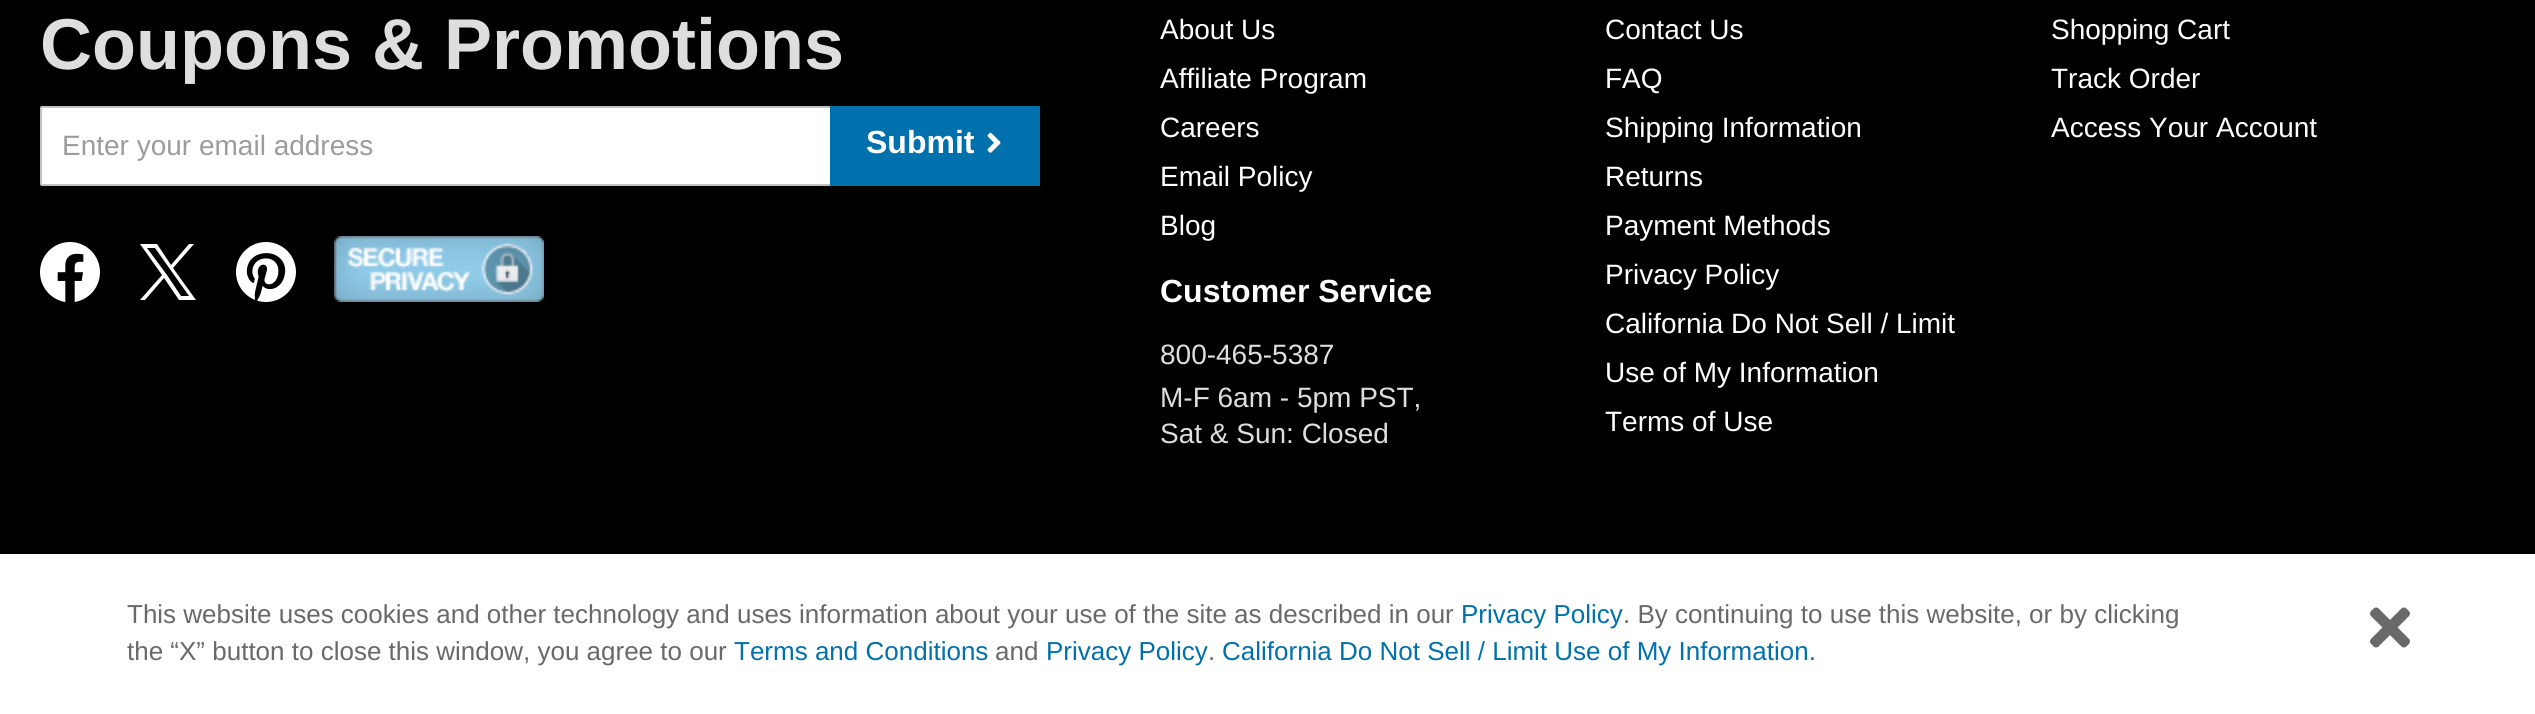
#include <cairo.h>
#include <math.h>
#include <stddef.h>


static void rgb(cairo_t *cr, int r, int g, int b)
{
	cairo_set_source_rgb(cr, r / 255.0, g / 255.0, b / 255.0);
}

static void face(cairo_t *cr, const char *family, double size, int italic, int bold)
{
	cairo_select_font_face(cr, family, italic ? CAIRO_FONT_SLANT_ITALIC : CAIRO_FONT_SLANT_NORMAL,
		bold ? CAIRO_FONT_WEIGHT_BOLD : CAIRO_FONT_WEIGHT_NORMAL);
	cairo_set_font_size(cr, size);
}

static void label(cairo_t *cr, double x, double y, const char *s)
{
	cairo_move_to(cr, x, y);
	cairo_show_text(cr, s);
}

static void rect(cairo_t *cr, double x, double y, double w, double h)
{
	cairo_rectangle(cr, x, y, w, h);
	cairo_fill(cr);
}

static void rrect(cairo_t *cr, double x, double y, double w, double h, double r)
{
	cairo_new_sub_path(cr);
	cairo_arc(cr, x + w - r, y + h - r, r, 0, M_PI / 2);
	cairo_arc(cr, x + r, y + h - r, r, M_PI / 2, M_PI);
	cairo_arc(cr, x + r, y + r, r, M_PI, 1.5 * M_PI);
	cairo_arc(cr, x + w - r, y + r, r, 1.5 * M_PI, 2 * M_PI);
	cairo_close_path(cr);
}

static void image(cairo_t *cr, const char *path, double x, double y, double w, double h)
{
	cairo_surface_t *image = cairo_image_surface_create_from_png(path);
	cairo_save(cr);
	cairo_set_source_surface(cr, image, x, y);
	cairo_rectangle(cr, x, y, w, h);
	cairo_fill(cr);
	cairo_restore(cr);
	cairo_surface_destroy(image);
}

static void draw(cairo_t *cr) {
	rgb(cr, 0, 0, 0);
	cairo_paint(cr);
	face(cr, "Liberation Sans", 72, 0, 1);
	rgb(cr, 222, 222, 222);
	label(cr, 40, 69, "Coupons & Promotions");
	rgb(cr, 255, 255, 255);
	rect(cr, 42, 108, 788, 76);
	rrect(cr, 41, 107, 988, 78, 1);
	rgb(cr, 194, 194, 194);
	cairo_stroke(cr);
	face(cr, "Liberation Sans", 28, 0, 0);
	rgb(cr, 156, 156, 156);
	label(cr, 62, 155, "Enter your email address");
	rgb(cr, 1, 113, 173);
	rect(cr, 830, 106, 210, 80);
	face(cr, "Liberation Sans", 32, 0, 1);
	rgb(cr, 255, 255, 255);
	label(cr, 866, 153, "Submit");
	image(cr, "image0.png", 987, 132, 14, 21);
	image(cr, "image1.png", 40, 242, 60, 60);
	cairo_new_path(cr);
	cairo_move_to(cr, 173, 268);
	cairo_line_to(cr, 194, 244);
	cairo_line_to(cr, 189, 244);
	cairo_line_to(cr, 171, 265);
	cairo_line_to(cr, 157, 244);
	cairo_line_to(cr, 140, 244);
	cairo_line_to(cr, 162, 275);
	cairo_line_to(cr, 140, 300);
	cairo_line_to(cr, 145, 300);
	cairo_line_to(cr, 164, 278);
	cairo_line_to(cr, 179, 300);
	cairo_line_to(cr, 196, 300);
	cairo_close_path(cr);
	cairo_move_to(cr, 167, 275);
	cairo_line_to(cr, 147, 248);
	cairo_line_to(cr, 155, 248);
	cairo_line_to(cr, 189, 296);
	cairo_line_to(cr, 181, 296);
	cairo_close_path(cr);
	cairo_fill(cr);
	image(cr, "image2.png", 236, 242, 60, 60);
	image(cr, "image3.png", 334, 236, 210, 66);
	face(cr, "Liberation Sans", 28, 0, 0);
	label(cr, 1160, 39, "About Us");
	label(cr, 1160, 88, "Affiliate Program");
	label(cr, 1160, 137, "Careers");
	label(cr, 1160, 186, "Email Policy");
	label(cr, 1160, 235, "Blog");
	face(cr, "Liberation Sans", 32, 0, 1);
	label(cr, 1160, 302, "Customer Service");
	face(cr, "Liberation Sans", 28, 0, 0);
	rgb(cr, 222, 222, 222);
	label(cr, 1160, 364, "800-465-5387");
	label(cr, 1160, 407, "M-F 6am - 5pm PST,");
	label(cr, 1160, 443, "Sat & Sun: Closed");
	rgb(cr, 255, 255, 255);
	label(cr, 1605, 39, "Contact Us");
	label(cr, 1605, 88, "FAQ");
	label(cr, 1605, 137, "Shipping Information");
	label(cr, 1605, 186, "Returns");
	label(cr, 1605, 235, "Payment Methods");
	label(cr, 1605, 284, "Privacy Policy");
	label(cr, 1605, 333, "California Do Not Sell / Limit");
	label(cr, 1605, 382, "Use of My Information");
	label(cr, 1605, 431, "Terms of Use");
	label(cr, 2051, 39, "Shopping Cart");
	label(cr, 2051, 88, "Track Order");
	label(cr, 2051, 137, "Access Your Account");
	rect(cr, 0, 554, 2535, 160);
	face(cr, "Liberation Sans", 26, 0, 0);
	rgb(cr, 105, 105, 105);
	label(cr, 127, 623, "This website uses cookies and other technology and uses information about your use of the site as described in our");
	rgb(cr, 1, 113, 173);
	label(cr, 1461, 623, "Privacy Policy");
	rgb(cr, 105, 105, 105);
	label(cr, 1623, 623, ". By continuing to use this website, or by clicking");
	label(cr, 127, 660, "the “X” button to close this window, you agree to our");
	rgb(cr, 1, 113, 173);
	label(cr, 734, 660, "Terms and Conditions");
	rgb(cr, 105, 105, 105);
	label(cr, 995, 660, "and");
	rgb(cr, 1, 113, 173);
	label(cr, 1046, 660, "Privacy Policy");
	rgb(cr, 105, 105, 105);
	label(cr, 1208, 660, ".");
	rgb(cr, 1, 113, 173);
	label(cr, 1222, 660, "California Do Not Sell / Limit Use of My Information.");
	image(cr, "image4.png", 2370, 607, 40, 41);
}

int main(void) {
	cairo_surface_t *surface = cairo_image_surface_create(CAIRO_FORMAT_RGB24, 2535, 714);
	cairo_t *cr = cairo_create(surface);
	cairo_font_options_t *options = cairo_font_options_create();
	cairo_font_options_set_hint_metrics(options, CAIRO_HINT_METRICS_OFF);
	cairo_font_options_set_hint_style(options, CAIRO_HINT_STYLE_NONE);
	cairo_set_font_options(cr, options);
	cairo_set_miter_limit(cr, 4);
	draw(cr);
	cairo_surface_write_to_png(surface, "render.png");
	cairo_font_options_destroy(options);
	cairo_destroy(cr);
	cairo_surface_destroy(surface);
	return 0;
}
